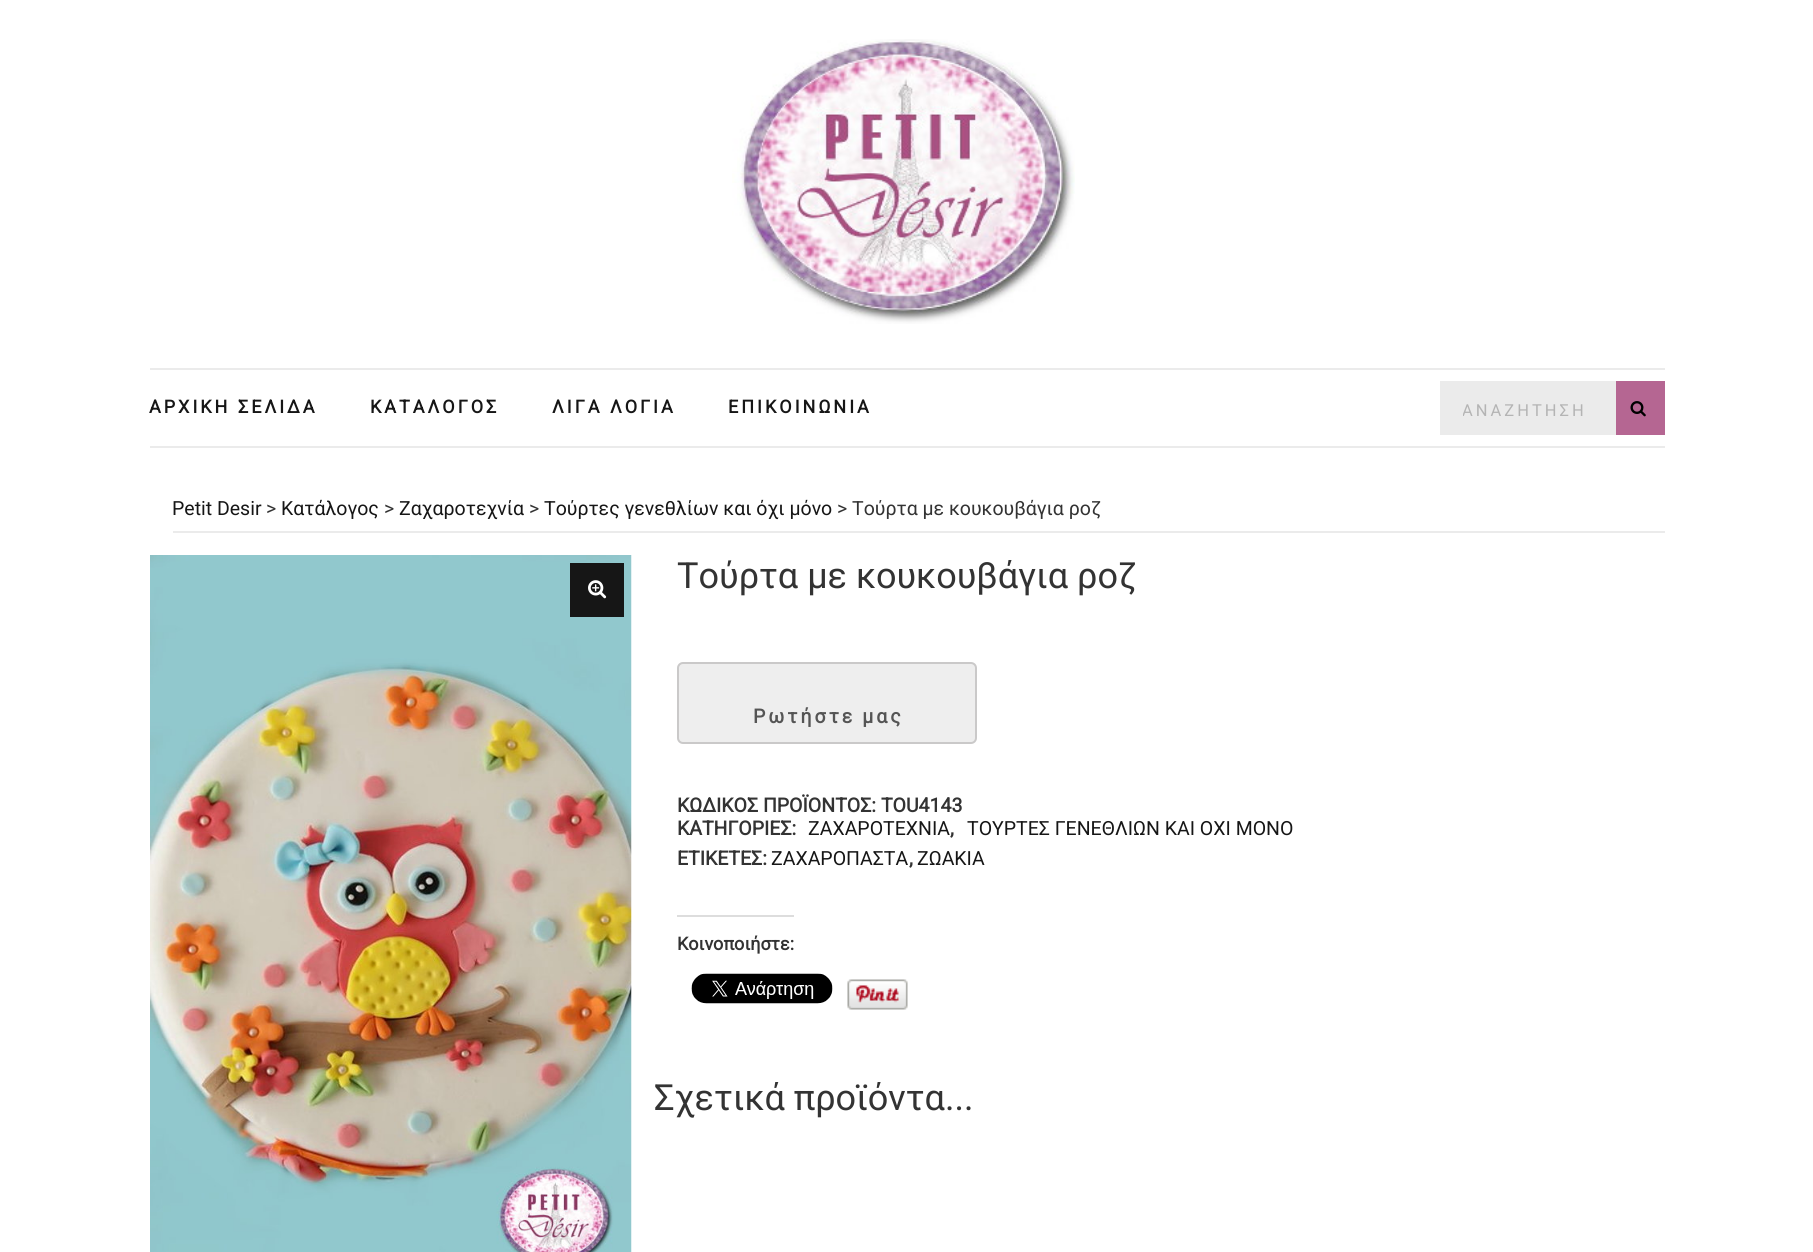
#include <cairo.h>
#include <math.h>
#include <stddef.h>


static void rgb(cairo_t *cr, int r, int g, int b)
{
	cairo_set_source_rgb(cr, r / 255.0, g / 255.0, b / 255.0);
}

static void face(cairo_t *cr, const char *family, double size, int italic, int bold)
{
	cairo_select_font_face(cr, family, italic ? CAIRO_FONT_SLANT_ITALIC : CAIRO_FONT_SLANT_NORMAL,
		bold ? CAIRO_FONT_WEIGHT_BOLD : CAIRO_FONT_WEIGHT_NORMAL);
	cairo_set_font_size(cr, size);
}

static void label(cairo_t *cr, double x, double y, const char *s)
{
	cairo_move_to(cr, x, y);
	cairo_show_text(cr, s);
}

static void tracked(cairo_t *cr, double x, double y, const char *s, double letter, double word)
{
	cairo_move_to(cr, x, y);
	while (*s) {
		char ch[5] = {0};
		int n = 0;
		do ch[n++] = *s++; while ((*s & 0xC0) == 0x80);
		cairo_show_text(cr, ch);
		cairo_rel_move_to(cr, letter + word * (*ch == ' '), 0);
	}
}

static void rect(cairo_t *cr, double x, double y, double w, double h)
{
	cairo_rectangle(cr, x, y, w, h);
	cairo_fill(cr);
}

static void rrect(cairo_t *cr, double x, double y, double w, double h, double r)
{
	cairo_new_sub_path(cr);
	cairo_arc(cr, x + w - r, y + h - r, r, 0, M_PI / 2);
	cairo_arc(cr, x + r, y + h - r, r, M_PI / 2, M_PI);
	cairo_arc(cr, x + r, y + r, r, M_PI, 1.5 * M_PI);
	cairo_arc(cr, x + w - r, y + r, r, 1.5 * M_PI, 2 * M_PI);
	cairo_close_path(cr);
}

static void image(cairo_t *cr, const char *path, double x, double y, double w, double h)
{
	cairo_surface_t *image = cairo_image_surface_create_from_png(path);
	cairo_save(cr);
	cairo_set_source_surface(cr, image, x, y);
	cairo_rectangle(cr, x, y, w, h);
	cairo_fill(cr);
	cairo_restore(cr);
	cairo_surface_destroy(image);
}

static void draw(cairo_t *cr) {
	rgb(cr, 255, 255, 255);
	cairo_paint(cr);
	image(cr, "image0.png", 732, 39, 343, 285);
	rgb(cr, 235, 235, 235);
	rect(cr, 150, 368, 1515, 2);
	rect(cr, 150, 446, 1515, 2);
	face(cr, "Roboto", 18, 0, 1);
	rgb(cr, 22, 22, 22);
	tracked(cr, 149, 413, "ΑΡΧΙΚΗ ΣΕΛΙΔΑ", 3, 0);
	tracked(cr, 370, 413, "ΚΑΤΑΛΟΓΟΣ", 3, 0);
	tracked(cr, 552, 413, "ΛΙΓΑ ΛΟΓΙΑ", 3, 0);
	tracked(cr, 728, 413, "ΕΠΙΚΟΙΝΩΝΙΑ", 3, 0);
	rgb(cr, 235, 235, 235);
	rect(cr, 1440, 381, 176, 54);
	cairo_save(cr);
	cairo_rectangle(cr, 1463, 402, 184, 20);
	cairo_clip(cr);
	face(cr, "Roboto", 16.5, 0, 0);
	rgb(cr, 180, 180, 180);
	tracked(cr, 1462, 416, "ΑΝΑΖΗΤΗΣΗ", 3, 0);
	cairo_restore(cr);
	rgb(cr, 181, 102, 146);
	rect(cr, 1616, 381, 49, 54);
	image(cr, "image1.png", 1630, 401, 16, 16);
	rgb(cr, 235, 235, 235);
	rect(cr, 173, 531, 1492, 2);
	face(cr, "Roboto", 19.5, 0, 0);
	rgb(cr, 22, 22, 22);
	label(cr, 172, 515, "Petit Desir");
	rgb(cr, 51, 51, 51);
	label(cr, 266, 515, ">");
	rgb(cr, 22, 22, 22);
	label(cr, 281, 515, "Κατάλογος");
	rgb(cr, 51, 51, 51);
	label(cr, 384, 515, ">");
	rgb(cr, 22, 22, 22);
	label(cr, 399, 515, "Ζαχαροτεχνία");
	rgb(cr, 51, 51, 51);
	label(cr, 529, 515, ">");
	rgb(cr, 22, 22, 22);
	label(cr, 544, 515, "Τούρτες γενεθλίων και όχι μόνο");
	rgb(cr, 51, 51, 51);
	label(cr, 837, 515, "> Τούρτα με κουκουβάγια ροζ");
	image(cr, "image2.png", 150, 555, 482, 697);
	rgb(cr, 22, 22, 22);
	rect(cr, 570, 563, 54, 54);
	image(cr, "image3.png", 588, 580, 19, 19);
	face(cr, "Roboto", 36, 0, 0);
	rgb(cr, 51, 51, 51);
	label(cr, 677, 588, "Τούρτα με κουκουβάγια ροζ");
	rgb(cr, 238, 238, 238);
	rrect(cr, 678, 663, 298, 80, 5);
	cairo_fill_preserve(cr);
	rgb(cr, 202, 201, 201);
	cairo_stroke(cr);
	face(cr, "Roboto", 19.5, 0, 1);
	rgb(cr, 85, 85, 85);
	tracked(cr, 753, 723, "Ρωτήστε μας", 3, -1);
	rgb(cr, 51, 51, 51);
	label(cr, 677, 812, "ΚΩΔΙΚΟΣ ΠΡΟΪΟΝΤΟΣ: TOU4143");
	label(cr, 677, 835, "ΚΑΤΗΓΟΡΙΕΣ:");
	face(cr, "Roboto", 19.5, 0, 0);
	rgb(cr, 22, 22, 22);
	label(cr, 808, 835, "ΖΑΧΑΡΟΤΕΧΝΙΑ");
	face(cr, "Roboto", 19.5, 0, 1);
	rgb(cr, 51, 51, 51);
	label(cr, 950, 835, ",");
	face(cr, "Roboto", 19.5, 0, 0);
	rgb(cr, 22, 22, 22);
	label(cr, 967, 835, "ΤΟΥΡΤΕΣ ΓΕΝΕΘΛΙΩΝ ΚΑΙ ΟΧΙ ΜΟΝΟ");
	face(cr, "Roboto", 19.5, 0, 1);
	rgb(cr, 51, 51, 51);
	label(cr, 677, 865, "ΕΤΙΚΕΤΕΣ:");
	face(cr, "Roboto", 19.5, 0, 0);
	rgb(cr, 22, 22, 22);
	label(cr, 771, 865, "ΖΑΧΑΡΟΠΑΣΤΑ");
	face(cr, "Roboto", 19.5, 0, 1);
	rgb(cr, 51, 51, 51);
	label(cr, 909, 865, ",");
	face(cr, "Roboto", 19.5, 0, 0);
	rgb(cr, 22, 22, 22);
	label(cr, 917, 865, "ΖΩΑΚΙΑ");
	rgb(cr, 221, 221, 221);
	rect(cr, 677, 915, 117, 2);
	face(cr, "Roboto", 18, 0, 1);
	rgb(cr, 51, 51, 51);
	label(cr, 677, 950, "Κοινοποιήστε:");
	image(cr, "image4.png", 691, 973, 142, 31);
	image(cr, "image5.png", 847, 979, 61, 31);
	face(cr, "Roboto", 36, 0, 0);
	label(cr, 654, 1110, "Σχετικά προϊόντα...");
}

int main(void) {
	cairo_surface_t *surface = cairo_image_surface_create(CAIRO_FORMAT_RGB24, 1813, 1252);
	cairo_t *cr = cairo_create(surface);
	cairo_font_options_t *options = cairo_font_options_create();
	cairo_font_options_set_hint_metrics(options, CAIRO_HINT_METRICS_OFF);
	cairo_font_options_set_hint_style(options, CAIRO_HINT_STYLE_NONE);
	cairo_set_font_options(cr, options);
	cairo_set_miter_limit(cr, 4);
	draw(cr);
	cairo_surface_write_to_png(surface, "render.png");
	cairo_font_options_destroy(options);
	cairo_destroy(cr);
	cairo_surface_destroy(surface);
	return 0;
}
